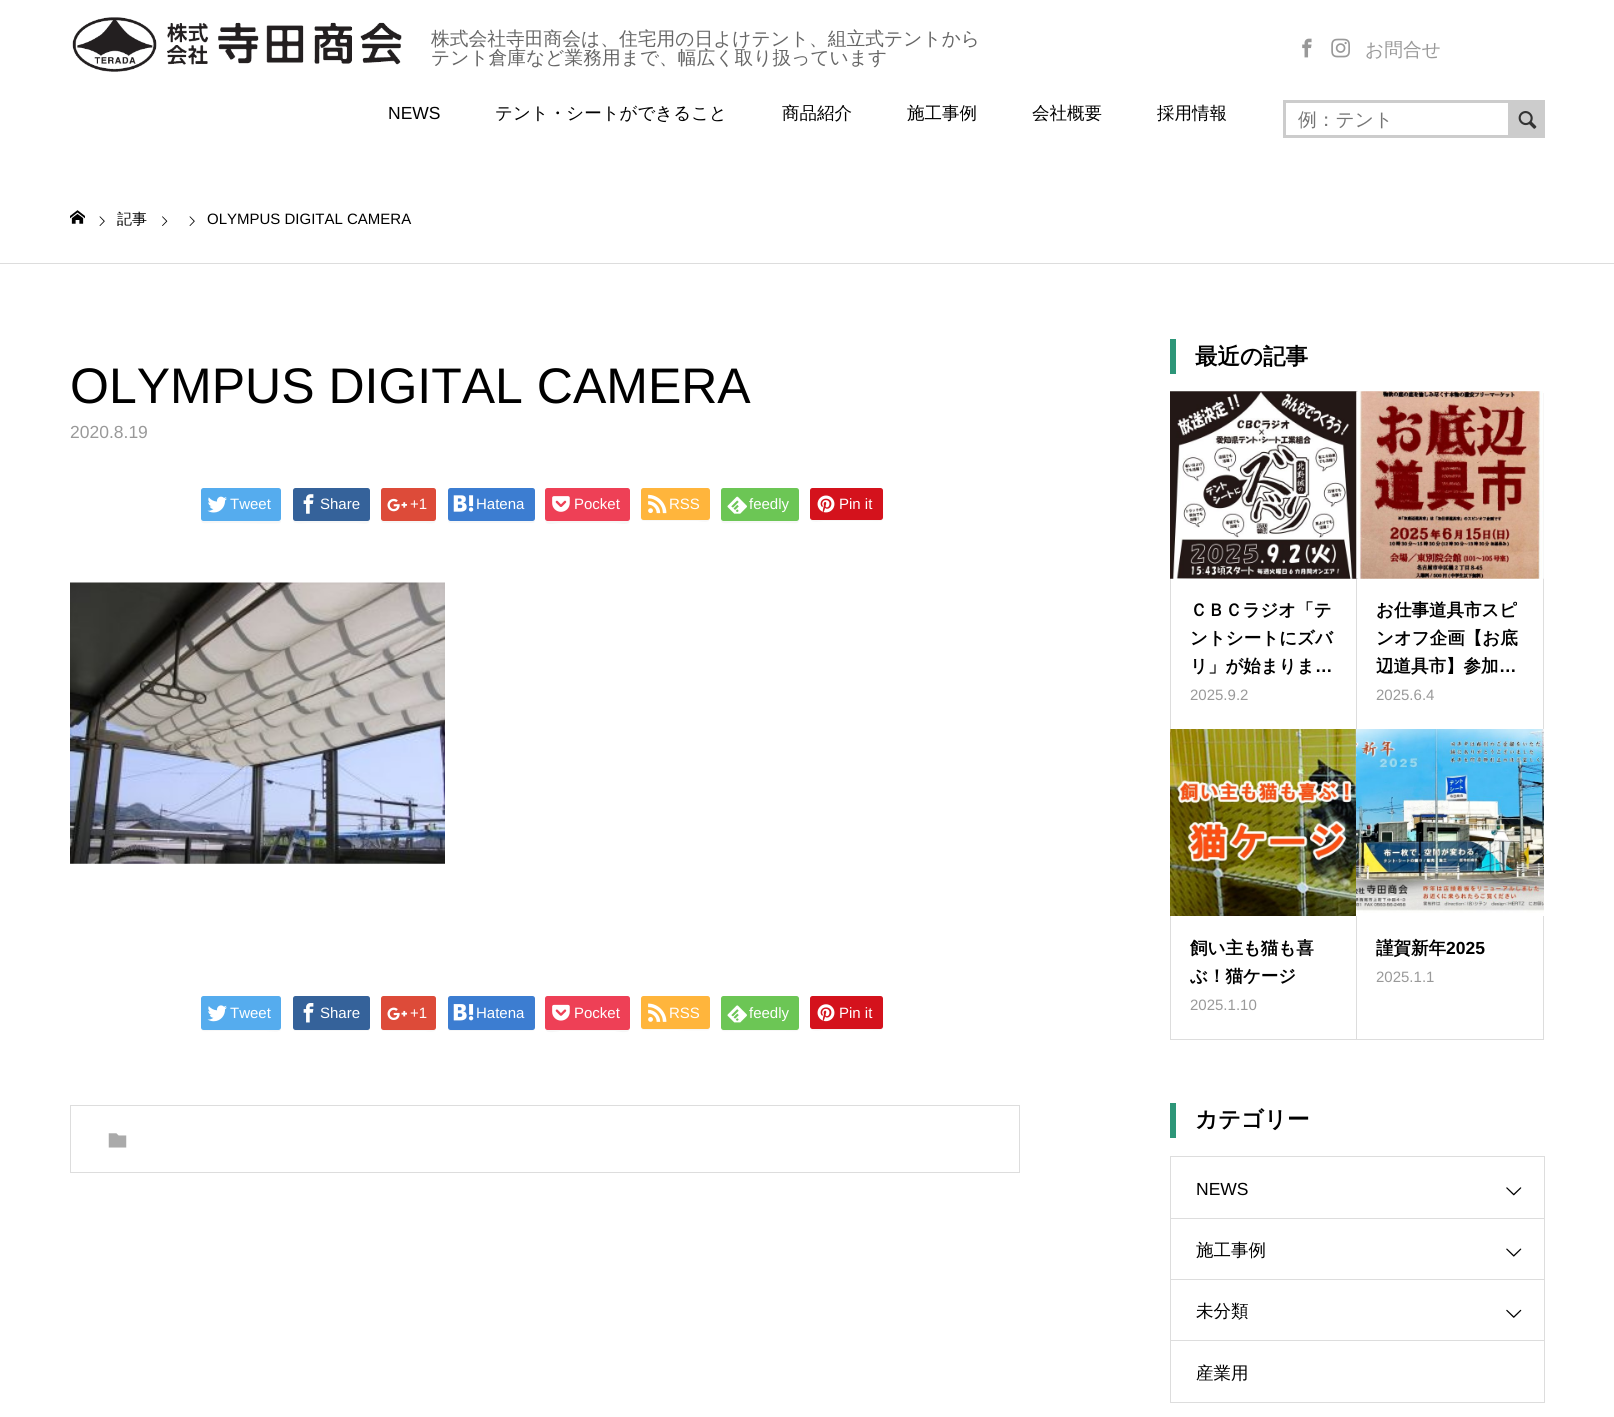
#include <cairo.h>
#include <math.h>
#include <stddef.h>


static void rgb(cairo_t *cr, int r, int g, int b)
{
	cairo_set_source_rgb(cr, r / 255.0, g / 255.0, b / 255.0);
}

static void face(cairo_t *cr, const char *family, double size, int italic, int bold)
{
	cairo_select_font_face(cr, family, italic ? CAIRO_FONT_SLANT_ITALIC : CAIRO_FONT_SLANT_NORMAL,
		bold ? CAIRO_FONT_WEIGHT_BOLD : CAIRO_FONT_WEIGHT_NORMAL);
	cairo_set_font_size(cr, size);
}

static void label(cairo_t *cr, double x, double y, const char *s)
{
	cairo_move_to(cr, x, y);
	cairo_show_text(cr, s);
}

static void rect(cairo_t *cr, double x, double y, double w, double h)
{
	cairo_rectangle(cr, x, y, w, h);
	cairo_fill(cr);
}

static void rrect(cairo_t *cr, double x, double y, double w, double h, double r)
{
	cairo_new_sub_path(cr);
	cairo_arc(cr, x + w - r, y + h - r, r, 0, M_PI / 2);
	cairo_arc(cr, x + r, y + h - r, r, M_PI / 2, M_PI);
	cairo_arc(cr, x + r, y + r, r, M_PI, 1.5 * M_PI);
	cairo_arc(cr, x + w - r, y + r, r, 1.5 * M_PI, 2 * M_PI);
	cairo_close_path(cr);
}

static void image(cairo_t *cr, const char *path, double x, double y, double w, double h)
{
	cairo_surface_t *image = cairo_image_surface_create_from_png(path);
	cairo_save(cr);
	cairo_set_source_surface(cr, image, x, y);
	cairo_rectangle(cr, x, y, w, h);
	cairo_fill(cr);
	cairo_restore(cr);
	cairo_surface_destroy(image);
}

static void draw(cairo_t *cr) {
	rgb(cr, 255, 255, 255);
	cairo_paint(cr);
	image(cr, "image0.png", 72, 17, 330, 55);
	face(cr, "WenQuanYi Zen Hei Medium", 18.75, 0, 0);
	rgb(cr, 102, 102, 102);
	label(cr, 431, 45, "株式会社寺田商会は、住宅用の日よけテント、組立式テントから");
	label(cr, 431, 64, "テント倉庫など業務用まで、幅広く取り扱っています");
	image(cr, "image1.png", 1302, 38, 10, 20);
	image(cr, "image2.png", 1331, 38, 19, 20);
	rgb(cr, 153, 153, 153);
	label(cr, 1365, 56, "お問合せ");
	cairo_rectangle(cr, 1284.5, 101.5, 247, 35);
	rgb(cr, 204, 204, 204);
	cairo_set_line_width(cr, 3);
	cairo_stroke(cr);
	rgb(cr, 117, 117, 117);
	label(cr, 1298, 126, "例：テント");
	rgb(cr, 204, 204, 204);
	rect(cr, 1508, 100, 37, 38);
	image(cr, "image3.png", 1518, 111, 19, 18);
	face(cr, "Liberation Sans", 17.5, 0, 0);
	rgb(cr, 0, 0, 0);
	label(cr, 388, 119, "NEWS");
	face(cr, "WenQuanYi Zen Hei Medium", 17.5, 0, 0);
	label(cr, 495, 119, "テント・シートができること");
	label(cr, 782, 119, "商品紹介");
	label(cr, 907, 119, "施工事例");
	label(cr, 1032, 119, "会社概要");
	label(cr, 1157, 119, "採用情報");
	rgb(cr, 221, 221, 221);
	rect(cr, 0, 263, 1614, 1);
	image(cr, "image4.png", 70, 210, 15, 14);
	image(cr, "image5.png", 99, 216, 6, 10);
	face(cr, "WenQuanYi Zen Hei Medium", 15, 0, 0);
	rgb(cr, 0, 0, 0);
	label(cr, 117, 224, "記事");
	image(cr, "image6.png", 162, 216, 6, 10);
	image(cr, "image5.png", 189, 216, 6, 10);
	face(cr, "Liberation Sans", 15, 0, 0);
	label(cr, 207, 224, "OLYMPUS DIGITAL CAMERA");
	face(cr, "Liberation Sans", 50, 0, 0);
	label(cr, 70, 403, "OLYMPUS DIGITAL CAMERA");
	face(cr, "Liberation Sans", 17.5, 0, 0);
	rgb(cr, 153, 153, 153);
	label(cr, 70, 438, "2020.8.19");
	rgb(cr, 247, 247, 247);
	cairo_new_path(cr);
	cairo_move_to(cr, 201, 490);
	cairo_line_to(cr, 201, 511);
	cairo_curve_to(cr, 201, 526, 199, 523, 216, 523);
	cairo_line_to(cr, 241, 523);
	cairo_curve_to(cr, 245, 523, 278, 524, 280, 523);
	cairo_curve_to(cr, 281, 522, 281, 521, 281, 520);
	cairo_curve_to(cr, 281, 521, 280, 521, 279, 521);
	cairo_line_to(cr, 204, 521);
	cairo_curve_to(cr, 202, 521, 201, 520, 201, 519);
	cairo_close_path(cr);
	cairo_fill(cr);
	rgb(cr, 85, 172, 238);
	rrect(cr, 201, 488, 80, 33, 2.5);
	cairo_fill(cr);
	image(cr, "image7.png", 207, 496, 20, 17);
	face(cr, "Liberation Sans", 15, 0, 0);
	rgb(cr, 255, 255, 255);
	label(cr, 230, 509, "Tweet");
	rgb(cr, 247, 247, 247);
	cairo_new_path(cr);
	cairo_move_to(cr, 293, 520);
	cairo_curve_to(cr, 293, 525, 302, 523, 308, 523);
	cairo_line_to(cr, 356, 523);
	cairo_curve_to(cr, 362, 523, 370, 526, 370, 519);
	cairo_line_to(cr, 370, 520);
	cairo_line_to(cr, 368, 521);
	cairo_line_to(cr, 294, 521);
	cairo_close_path(cr);
	cairo_fill(cr);
	rgb(cr, 53, 98, 154);
	rrect(cr, 293, 488, 77, 33, 2.5);
	cairo_fill(cr);
	image(cr, "image8.png", 303, 494, 11, 20);
	rgb(cr, 255, 255, 255);
	label(cr, 320, 509, "Share");
	rgb(cr, 247, 247, 247);
	cairo_new_path(cr);
	cairo_move_to(cr, 381, 490);
	cairo_line_to(cr, 381, 511);
	cairo_curve_to(cr, 381, 524, 379, 523, 392, 523);
	cairo_line_to(cr, 425, 523);
	cairo_curve_to(cr, 428, 523, 436, 525, 436, 520);
	cairo_curve_to(cr, 436, 521, 435, 521, 434, 521);
	cairo_line_to(cr, 384, 521);
	cairo_curve_to(cr, 382, 521, 381, 520, 381, 519);
	cairo_close_path(cr);
	cairo_fill(cr);
	rgb(cr, 221, 75, 57);
	rrect(cr, 381, 488, 55, 33, 2.5);
	cairo_fill(cr);
	image(cr, "image9.png", 387, 498, 20, 14);
	rgb(cr, 255, 255, 255);
	label(cr, 410, 509, "+1");
	rgb(cr, 247, 247, 247);
	cairo_new_path(cr);
	cairo_move_to(cr, 448, 520);
	cairo_curve_to(cr, 448, 522, 449, 523, 450, 523);
	cairo_line_to(cr, 532, 523);
	cairo_curve_to(cr, 534, 523, 535, 522, 535, 520);
	cairo_line_to(cr, 535, 519);
	cairo_line_to(cr, 535, 520);
	cairo_line_to(cr, 533, 521);
	cairo_line_to(cr, 450, 521);
	cairo_close_path(cr);
	cairo_fill(cr);
	rgb(cr, 60, 125, 209);
	rrect(cr, 448, 488, 87, 33, 2.5);
	cairo_fill(cr);
	image(cr, "image10.png", 453, 495, 21, 17);
	rgb(cr, 255, 255, 255);
	label(cr, 476, 509, "Hatena");
	rgb(cr, 247, 247, 247);
	cairo_new_path(cr);
	cairo_move_to(cr, 545, 519);
	cairo_curve_to(cr, 545, 527, 554, 523, 561, 523);
	cairo_line_to(cr, 614, 523);
	cairo_curve_to(cr, 621, 523, 630, 527, 630, 519);
	cairo_curve_to(cr, 630, 520, 629, 521, 628, 521);
	cairo_line_to(cr, 548, 521);
	cairo_curve_to(cr, 546, 521, 545, 520, 545, 519);
	cairo_close_path(cr);
	cairo_fill(cr);
	rgb(cr, 238, 64, 86);
	rrect(cr, 545, 488, 85, 33, 2.5);
	cairo_fill(cr);
	image(cr, "image11.png", 552, 496, 18, 16);
	rgb(cr, 255, 255, 255);
	label(cr, 574, 509, "Pocket");
	rgb(cr, 247, 247, 247);
	cairo_new_path(cr);
	cairo_move_to(cr, 641, 490);
	cairo_line_to(cr, 641, 505);
	cairo_curve_to(cr, 641, 523, 637, 521, 654, 521);
	cairo_line_to(cr, 697, 521);
	cairo_curve_to(cr, 701, 521, 710, 524, 710, 518);
	cairo_curve_to(cr, 710, 519, 709, 520, 708, 520);
	cairo_line_to(cr, 644, 520);
	cairo_curve_to(cr, 642, 520, 641, 519, 641, 518);
	cairo_close_path(cr);
	cairo_fill(cr);
	rgb(cr, 255, 181, 60);
	rrect(cr, 641, 488, 69, 32, 2.5);
	cairo_fill(cr);
	image(cr, "image12.png", 648, 494, 19, 20);
	rgb(cr, 255, 255, 255);
	label(cr, 669, 509, "RSS");
	rgb(cr, 247, 247, 247);
	cairo_new_path(cr);
	cairo_move_to(cr, 721, 490);
	cairo_line_to(cr, 721, 511);
	cairo_curve_to(cr, 721, 526, 719, 523, 736, 523);
	cairo_line_to(cr, 784, 523);
	cairo_curve_to(cr, 801, 523, 799, 526, 799, 511);
	cairo_line_to(cr, 799, 490);
	cairo_line_to(cr, 799, 519);
	cairo_curve_to(cr, 799, 520, 798, 521, 796, 521);
	cairo_line_to(cr, 724, 521);
	cairo_curve_to(cr, 722, 521, 721, 520, 721, 519);
	cairo_close_path(cr);
	cairo_fill(cr);
	rgb(cr, 108, 198, 85);
	rrect(cr, 721, 488, 78, 33, 2.5);
	cairo_fill(cr);
	image(cr, "image13.png", 727, 496, 20, 18);
	rgb(cr, 255, 255, 255);
	label(cr, 749, 509, "feedly");
	rgb(cr, 247, 247, 247);
	cairo_new_path(cr);
	cairo_move_to(cr, 810, 518);
	cairo_curve_to(cr, 810, 524, 820, 521, 824, 521);
	cairo_line_to(cr, 869, 521);
	cairo_curve_to(cr, 887, 521, 883, 523, 883, 505);
	cairo_curve_to(cr, 883, 502, 884, 492, 882, 490);
	cairo_line_to(cr, 882, 518);
	cairo_curve_to(cr, 882, 519, 881, 520, 880, 520);
	cairo_line_to(cr, 812, 520);
	cairo_curve_to(cr, 811, 520, 810, 519, 810, 518);
	cairo_close_path(cr);
	cairo_fill(cr);
	rgb(cr, 212, 18, 28);
	rrect(cr, 810, 488, 73, 32, 2.5);
	cairo_fill(cr);
	image(cr, "image14.png", 817, 495, 18, 18);
	rgb(cr, 255, 255, 255);
	label(cr, 839, 509, "Pin it");
	image(cr, "image15.png", 70, 582, 375, 282);
	rgb(cr, 247, 247, 247);
	cairo_new_path(cr);
	cairo_move_to(cr, 201, 999);
	cairo_line_to(cr, 201, 1019);
	cairo_curve_to(cr, 201, 1034, 199, 1031, 216, 1031);
	cairo_line_to(cr, 266, 1031);
	cairo_curve_to(cr, 271, 1031, 281, 1033, 281, 1029);
	cairo_curve_to(cr, 281, 1029, 280, 1030, 279, 1030);
	cairo_line_to(cr, 204, 1030);
	cairo_curve_to(cr, 202, 1030, 201, 1029, 201, 1028);
	cairo_close_path(cr);
	cairo_fill(cr);
	rgb(cr, 85, 172, 238);
	rrect(cr, 201, 996, 80, 34, 2.5);
	cairo_fill(cr);
	image(cr, "image16.png", 207, 1005, 20, 17);
	rgb(cr, 255, 255, 255);
	label(cr, 230, 1018, "Tweet");
	rgb(cr, 247, 247, 247);
	cairo_new_path(cr);
	cairo_move_to(cr, 293, 1029);
	cairo_curve_to(cr, 293, 1030, 294, 1031, 296, 1031);
	cairo_line_to(cr, 368, 1031);
	cairo_curve_to(cr, 369, 1031, 370, 1030, 370, 1028);
	cairo_curve_to(cr, 370, 1029, 369, 1030, 368, 1030);
	cairo_line_to(cr, 295, 1030);
	cairo_close_path(cr);
	cairo_fill(cr);
	rgb(cr, 53, 98, 154);
	rrect(cr, 293, 996, 77, 34, 2.5);
	cairo_fill(cr);
	image(cr, "image17.png", 303, 1003, 11, 20);
	rgb(cr, 255, 255, 255);
	label(cr, 320, 1018, "Share");
	rgb(cr, 247, 247, 247);
	cairo_new_path(cr);
	cairo_move_to(cr, 381, 999);
	cairo_line_to(cr, 381, 1019);
	cairo_curve_to(cr, 381, 1032, 379, 1031, 392, 1031);
	cairo_line_to(cr, 425, 1031);
	cairo_curve_to(cr, 426, 1031, 436, 1033, 436, 1029);
	cairo_curve_to(cr, 436, 1029, 435, 1030, 434, 1030);
	cairo_line_to(cr, 384, 1030);
	cairo_curve_to(cr, 382, 1030, 381, 1029, 381, 1028);
	cairo_close_path(cr);
	cairo_fill(cr);
	rgb(cr, 221, 75, 57);
	rrect(cr, 381, 996, 55, 34, 2.5);
	cairo_fill(cr);
	image(cr, "image18.png", 387, 1007, 20, 13);
	rgb(cr, 255, 255, 255);
	label(cr, 410, 1018, "+1");
	rgb(cr, 247, 247, 247);
	cairo_new_path(cr);
	cairo_move_to(cr, 448, 1029);
	cairo_curve_to(cr, 448, 1030, 449, 1031, 450, 1031);
	cairo_line_to(cr, 532, 1031);
	cairo_curve_to(cr, 534, 1031, 535, 1030, 535, 1028);
	cairo_curve_to(cr, 535, 1029, 534, 1030, 532, 1030);
	cairo_line_to(cr, 450, 1030);
	cairo_close_path(cr);
	cairo_fill(cr);
	rgb(cr, 60, 125, 209);
	rrect(cr, 448, 996, 87, 34, 2.5);
	cairo_fill(cr);
	image(cr, "image19.png", 453, 1004, 21, 17);
	rgb(cr, 255, 255, 255);
	label(cr, 476, 1018, "Hatena");
	rgb(cr, 247, 247, 247);
	cairo_new_path(cr);
	cairo_move_to(cr, 545, 1028);
	cairo_curve_to(cr, 545, 1035, 558, 1031, 561, 1031);
	cairo_line_to(cr, 614, 1031);
	cairo_curve_to(cr, 617, 1031, 630, 1035, 630, 1028);
	cairo_curve_to(cr, 630, 1029, 629, 1030, 628, 1030);
	cairo_line_to(cr, 548, 1030);
	cairo_curve_to(cr, 546, 1030, 545, 1029, 545, 1028);
	cairo_close_path(cr);
	cairo_fill(cr);
	rgb(cr, 238, 64, 86);
	rrect(cr, 545, 996, 85, 34, 2.5);
	cairo_fill(cr);
	image(cr, "image20.png", 552, 1004, 18, 17);
	rgb(cr, 255, 255, 255);
	label(cr, 574, 1018, "Pocket");
	rgb(cr, 247, 247, 247);
	cairo_new_path(cr);
	cairo_move_to(cr, 641, 999);
	cairo_line_to(cr, 641, 1018);
	cairo_curve_to(cr, 641, 1032, 639, 1030, 654, 1030);
	cairo_line_to(cr, 676, 1030);
	cairo_curve_to(cr, 679, 1030, 707, 1031, 709, 1030);
	cairo_curve_to(cr, 710, 1029, 710, 1028, 710, 1026);
	cairo_curve_to(cr, 710, 1028, 709, 1029, 708, 1029);
	cairo_line_to(cr, 644, 1029);
	cairo_curve_to(cr, 642, 1029, 641, 1028, 641, 1026);
	cairo_close_path(cr);
	cairo_fill(cr);
	rgb(cr, 255, 181, 60);
	rrect(cr, 641, 996, 69, 33, 2.5);
	cairo_fill(cr);
	image(cr, "image21.png", 648, 1003, 19, 19);
	rgb(cr, 255, 255, 255);
	label(cr, 669, 1018, "RSS");
	rgb(cr, 247, 247, 247);
	cairo_new_path(cr);
	cairo_move_to(cr, 721, 999);
	cairo_line_to(cr, 721, 1019);
	cairo_curve_to(cr, 721, 1034, 719, 1031, 736, 1031);
	cairo_line_to(cr, 784, 1031);
	cairo_curve_to(cr, 801, 1031, 799, 1034, 799, 1019);
	cairo_line_to(cr, 799, 999);
	cairo_line_to(cr, 799, 1028);
	cairo_curve_to(cr, 799, 1029, 798, 1030, 796, 1030);
	cairo_line_to(cr, 724, 1030);
	cairo_curve_to(cr, 722, 1030, 721, 1029, 721, 1028);
	cairo_close_path(cr);
	cairo_fill(cr);
	rgb(cr, 108, 198, 85);
	rrect(cr, 721, 996, 78, 34, 2.5);
	cairo_fill(cr);
	image(cr, "image22.png", 727, 1005, 20, 18);
	rgb(cr, 255, 255, 255);
	label(cr, 749, 1018, "feedly");
	rgb(cr, 247, 247, 247);
	cairo_new_path(cr);
	cairo_move_to(cr, 810, 1026);
	cairo_curve_to(cr, 810, 1033, 819, 1030, 824, 1030);
	cairo_line_to(cr, 869, 1030);
	cairo_curve_to(cr, 887, 1030, 883, 1032, 883, 1014);
	cairo_curve_to(cr, 883, 1011, 884, 1001, 882, 999);
	cairo_line_to(cr, 882, 1026);
	cairo_curve_to(cr, 882, 1028, 881, 1029, 880, 1029);
	cairo_line_to(cr, 812, 1029);
	cairo_curve_to(cr, 811, 1029, 810, 1028, 810, 1026);
	cairo_close_path(cr);
	cairo_fill(cr);
	rgb(cr, 212, 18, 28);
	rrect(cr, 810, 996, 73, 33, 2.5);
	cairo_fill(cr);
	image(cr, "image23.png", 817, 1004, 18, 18);
	rgb(cr, 255, 255, 255);
	label(cr, 839, 1018, "Pin it");
	cairo_rectangle(cr, 70.5, 1105.5, 949, 67);
	rgb(cr, 221, 221, 221);
	cairo_set_line_width(cr, 1);
	cairo_stroke(cr);
	image(cr, "image24.png", 108, 1133, 19, 15);
	rgb(cr, 45, 150, 120);
	rect(cr, 1170, 339, 6, 35);
	face(cr, "WenQuanYi Zen Hei", 22.5, 0, 1);
	rgb(cr, 0, 0, 0);
	label(cr, 1195, 364, "最近の記事");
	rgb(cr, 221, 221, 221);
	rect(cr, 1170, 578, 1, 152);
	rect(cr, 1356, 578, 1, 152);
	image(cr, "image25.png", 1170, 391, 188, 188);
	face(cr, "WenQuanYi Zen Hei", 17.5, 0, 1);
	rgb(cr, 0, 0, 0);
	label(cr, 1190, 616, "ＣＢＣラジオ「テ");
	label(cr, 1190, 644, "ントシートにズバ");
	label(cr, 1190, 672, "リ」が始まりま");
	face(cr, "Liberation Sans", 17.5, 0, 1);
	label(cr, 1315, 672, "…");
	face(cr, "Liberation Sans", 15, 0, 0);
	rgb(cr, 153, 153, 153);
	label(cr, 1190, 700, "2025.9.2");
	rgb(cr, 221, 221, 221);
	rect(cr, 1543, 393, 1, 337);
	image(cr, "image26.png", 1356, 391, 188, 188);
	face(cr, "WenQuanYi Zen Hei", 17.5, 0, 1);
	rgb(cr, 0, 0, 0);
	label(cr, 1376, 616, "お仕事道具市スピ");
	label(cr, 1376, 644, "ンオフ企画【お底");
	label(cr, 1376, 672, "辺道具市】参加");
	face(cr, "Liberation Sans", 17.5, 0, 1);
	label(cr, 1499, 672, "…");
	face(cr, "Liberation Sans", 15, 0, 0);
	rgb(cr, 153, 153, 153);
	label(cr, 1376, 700, "2025.6.4");
	rgb(cr, 221, 221, 221);
	rect(cr, 1170, 1039, 188, 1);
	rect(cr, 1170, 916, 1, 124);
	image(cr, "image27.png", 1170, 729, 186, 187);
	face(cr, "WenQuanYi Zen Hei", 17.5, 0, 1);
	rgb(cr, 0, 0, 0);
	label(cr, 1190, 954, "飼い主も猫も喜");
	label(cr, 1190, 982, "ぶ！猫ケージ");
	face(cr, "Liberation Sans", 15, 0, 0);
	rgb(cr, 153, 153, 153);
	label(cr, 1190, 1010, "2025.1.10");
	rgb(cr, 221, 221, 221);
	rect(cr, 1543, 916, 1, 124);
	rect(cr, 1356, 1039, 188, 1);
	rect(cr, 1356, 916, 1, 124);
	image(cr, "image28.png", 1356, 729, 188, 187);
	face(cr, "WenQuanYi Zen Hei", 17.5, 0, 1);
	rgb(cr, 0, 0, 0);
	label(cr, 1376, 954, "謹賀新年");
	face(cr, "Liberation Sans", 17.5, 0, 1);
	label(cr, 1446, 954, "2025");
	face(cr, "Liberation Sans", 15, 0, 0);
	rgb(cr, 153, 153, 153);
	label(cr, 1376, 982, "2025.1.1");
	rgb(cr, 45, 150, 120);
	rect(cr, 1170, 1103, 6, 35);
	face(cr, "WenQuanYi Zen Hei", 22.5, 0, 1);
	rgb(cr, 0, 0, 0);
	label(cr, 1195, 1127, "カテゴリー");
	cairo_rectangle(cr, 1170.5, 1156.5, 374, 62);
	rgb(cr, 221, 221, 221);
	cairo_stroke(cr);
	face(cr, "Liberation Sans", 17.5, 0, 0);
	rgb(cr, 0, 0, 0);
	label(cr, 1196, 1195, "NEWS");
	image(cr, "image29.png", 1506, 1187, 16, 9);
	cairo_rectangle(cr, 1170.5, 1218.5, 374, 61);
	rgb(cr, 221, 221, 221);
	cairo_stroke(cr);
	face(cr, "WenQuanYi Zen Hei Medium", 17.5, 0, 0);
	rgb(cr, 0, 0, 0);
	label(cr, 1196, 1256, "施工事例");
	image(cr, "image30.png", 1506, 1248, 16, 9);
	cairo_rectangle(cr, 1170.5, 1279.5, 374, 61);
	rgb(cr, 221, 221, 221);
	cairo_stroke(cr);
	rgb(cr, 0, 0, 0);
	label(cr, 1196, 1317, "未分類");
	image(cr, "image31.png", 1506, 1309, 16, 9);
	cairo_rectangle(cr, 1170.5, 1340.5, 374, 62);
	rgb(cr, 221, 221, 221);
	cairo_stroke(cr);
	rgb(cr, 0, 0, 0);
	label(cr, 1196, 1379, "産業用");
}

int main(void) {
	cairo_surface_t *surface = cairo_image_surface_create(CAIRO_FORMAT_RGB24, 1614, 1417);
	cairo_t *cr = cairo_create(surface);
	cairo_font_options_t *options = cairo_font_options_create();
	cairo_font_options_set_hint_metrics(options, CAIRO_HINT_METRICS_OFF);
	cairo_font_options_set_hint_style(options, CAIRO_HINT_STYLE_NONE);
	cairo_set_font_options(cr, options);
	cairo_set_miter_limit(cr, 4);
	draw(cr);
	cairo_surface_write_to_png(surface, "render.png");
	cairo_font_options_destroy(options);
	cairo_destroy(cr);
	cairo_surface_destroy(surface);
	return 0;
}
